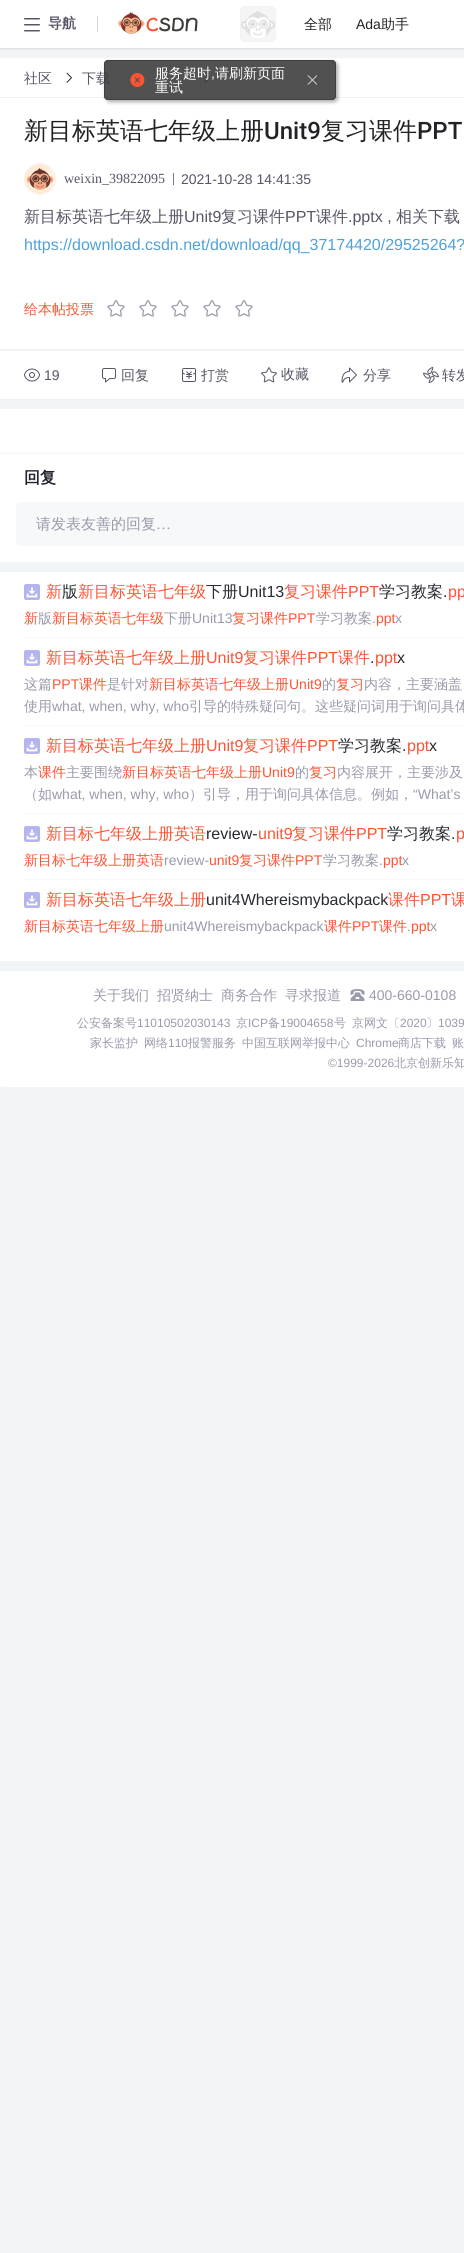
#include <cairo.h>
#include <math.h>
#include <stddef.h>


static void rgb(cairo_t *cr, int r, int g, int b)
{
	cairo_set_source_rgb(cr, r / 255.0, g / 255.0, b / 255.0);
}

static void face(cairo_t *cr, const char *family, double size, int italic, int bold)
{
	cairo_select_font_face(cr, family, italic ? CAIRO_FONT_SLANT_ITALIC : CAIRO_FONT_SLANT_NORMAL,
		bold ? CAIRO_FONT_WEIGHT_BOLD : CAIRO_FONT_WEIGHT_NORMAL);
	cairo_set_font_size(cr, size);
}

static void label(cairo_t *cr, double x, double y, const char *s)
{
	cairo_move_to(cr, x, y);
	cairo_show_text(cr, s);
}

static void rect(cairo_t *cr, double x, double y, double w, double h)
{
	cairo_rectangle(cr, x, y, w, h);
	cairo_fill(cr);
}

static void rrect(cairo_t *cr, double x, double y, double w, double h, double r)
{
	cairo_new_sub_path(cr);
	cairo_arc(cr, x + w - r, y + h - r, r, 0, M_PI / 2);
	cairo_arc(cr, x + r, y + h - r, r, M_PI / 2, M_PI);
	cairo_arc(cr, x + r, y + r, r, M_PI, 1.5 * M_PI);
	cairo_arc(cr, x + w - r, y + r, r, 1.5 * M_PI, 2 * M_PI);
	cairo_close_path(cr);
}

static void soft_shadow(cairo_t *cr, double x, double y, double w, double h, double r, double blur, double alpha)
{
	cairo_push_group_with_content(cr, CAIRO_CONTENT_ALPHA);
	cairo_set_operator(cr, CAIRO_OPERATOR_SOURCE);
	for (int i = 15; i >= -15 && fmin(w, h) + blur * i / 3 > 0; i -= 2) {
		double e = blur * i / 6;
		cairo_set_source_rgba(cr, 0, 0, 0, alpha * erfc((i - 1) / 8.5) / 2);
		rrect(cr, x - e, y - e, w + 2 * e, h + 2 * e, fmax(0, fmin(r + e + blur * .6, fmin(w, h) / 2 + e)));
		cairo_fill(cr);
	}
	cairo_pattern_t *soft = cairo_pop_group(cr);
	cairo_mask(cr, soft);
	cairo_pattern_destroy(soft);
}

static void image(cairo_t *cr, const char *path, double x, double y, double w, double h)
{
	cairo_surface_t *image = cairo_image_surface_create_from_png(path);
	cairo_save(cr);
	cairo_set_source_surface(cr, image, x, y);
	cairo_rectangle(cr, x, y, w, h);
	cairo_fill(cr);
	cairo_restore(cr);
	cairo_surface_destroy(image);
}

static void draw(cairo_t *cr) {
	rgb(cr, 242, 245, 247);
	cairo_paint(cr);
	rgb(cr, 0, 0, 0);
	soft_shadow(cr, 0, 1, 464, 48, 0, 1, 0.1);
	rgb(cr, 255, 255, 255);
	rect(cr, 0, 0, 464, 48);
	image(cr, "image0.png", 24, 18, 16, 14);
	face(cr, "WenQuanYi Zen Hei", 14, 0, 1);
	rgb(cr, 85, 86, 102);
	label(cr, 48, 28, "导航");
	rgb(cr, 216, 216, 216);
	rrect(cr, 97, 16, 1, 16, 0.5);
	cairo_fill(cr);
	image(cr, "image1.png", 118, 12, 80, 22);
	rrect(cr, 240.5, 6.5, 35, 35, 3.5);
	rgb(cr, 242, 242, 242);
	cairo_set_line_width(cr, 1);
	cairo_stroke(cr);
	image(cr, "image2.png", 241, 7, 34, 34);
	face(cr, "WenQuanYi Zen Hei Medium", 14, 0, 0);
	rgb(cr, 34, 34, 38);
	label(cr, 304, 29, "全部");
	face(cr, "Liberation Sans", 14, 0, 0);
	label(cr, 356, 29, "Ada");
	face(cr, "WenQuanYi Zen Hei Medium", 14, 0, 0);
	label(cr, 381, 29, "助手");
	rgb(cr, 255, 255, 255);
	cairo_new_path(cr);
	cairo_move_to(cr, 2, 58);
	cairo_line_to(cr, 464, 58);
	cairo_curve_to(cr, 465, 58, 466, 59, 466, 60);
	cairo_line_to(cr, 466, 98);
	cairo_line_to(cr, 0, 98);
	cairo_line_to(cr, 0, 60);
	cairo_curve_to(cr, 0, 59, 1, 58, 2, 58);
	cairo_close_path(cr);
	cairo_fill(cr);
	rgb(cr, 242, 242, 242);
	rect(cr, 0, 97, 464, 1);
	rgb(cr, 85, 86, 102);
	label(cr, 24, 83, "社区");
	image(cr, "image3.png", 66, 72, 6, 11);
	label(cr, 82, 83, "下载");
	image(cr, "image3.png", 204, 72, 6, 11);
	rgb(cr, 255, 255, 255);
	rect(cr, 0, 98, 464, 253);
	face(cr, "WenQuanYi Zen Hei Medium", 24, 0, 0);
	rgb(cr, 34, 34, 38);
	label(cr, 24, 139, "新目标英语七年级上册");
	face(cr, "Roboto Medium", 24, 0, 0);
	label(cr, 264, 139, "Unit9");
	face(cr, "WenQuanYi Zen Hei Medium", 24, 0, 0);
	label(cr, 321, 139, "复习课件");
	face(cr, "Roboto Medium", 24, 0, 0);
	label(cr, 417, 139, "PPT");
	cairo_new_path(cr);
	cairo_arc(cr, 40, 179, 15.5, 0, 2 * M_PI);
	rgb(cr, 242, 242, 242);
	cairo_stroke(cr);
	image(cr, "image4.png", 25, 164, 30, 30);
	face(cr, "Liberation Serif", 14, 0, 0);
	rgb(cr, 85, 86, 102);
	label(cr, 64, 183, "weixin_39822095");
	rgb(cr, 119, 120, 136);
	rect(cr, 173, 173, 1, 12);
	face(cr, "Liberation Sans", 14, 0, 0);
	rgb(cr, 85, 86, 102);
	label(cr, 181, 184, "2021-10-28 14:41:35");
	face(cr, "WenQuanYi Zen Hei Medium", 16, 0, 0);
	label(cr, 24, 222, "新目标英语七年级上册");
	face(cr, "Liberation Sans", 16, 0, 0);
	label(cr, 184, 222, "Unit9");
	face(cr, "WenQuanYi Zen Hei Medium", 16, 0, 0);
	label(cr, 221, 222, "复习课件");
	face(cr, "Liberation Sans", 16, 0, 0);
	label(cr, 285, 222, "PPT");
	face(cr, "WenQuanYi Zen Hei Medium", 16, 0, 0);
	label(cr, 316, 222, "课件");
	face(cr, "Liberation Sans", 16, 0, 0);
	label(cr, 348, 222, ".pptx ,");
	face(cr, "WenQuanYi Zen Hei Medium", 16, 0, 0);
	label(cr, 396, 222, "相关下载");
	face(cr, "Liberation Sans", 16, 0, 0);
	rgb(cr, 78, 161, 219);
	label(cr, 24, 250, "https://download.csdn.net/download/qq_37174420/29525264?");
	face(cr, "WenQuanYi Zen Hei Medium", 14, 0, 0);
	rgb(cr, 252, 85, 51);
	label(cr, 24, 314, "给本帖投票");
	image(cr, "image5.png", 107, 300, 18, 17);
	image(cr, "image5.png", 139, 300, 18, 17);
	image(cr, "image5.png", 171, 300, 18, 17);
	image(cr, "image5.png", 203, 300, 18, 17);
	image(cr, "image5.png", 235, 300, 18, 17);
	rgb(cr, 18, 18, 18);
	soft_shadow(cr, 0, 350, 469, 48, 0, 1.5, 0.1);
	rgb(cr, 255, 255, 255);
	rect(cr, 0, 351, 464, 48);
	image(cr, "image6.png", 24, 368, 16, 14);
	face(cr, "Liberation Sans", 14, 0, 0);
	rgb(cr, 85, 86, 102);
	label(cr, 44, 380, "19");
	image(cr, "image7.png", 102, 368, 14, 15);
	face(cr, "WenQuanYi Zen Hei Medium", 14, 0, 0);
	label(cr, 121, 380, "回复");
	image(cr, "image8.png", 182, 368, 14, 14);
	label(cr, 201, 380, "打赏");
	image(cr, "image9.png", 261, 367, 16, 16);
	label(cr, 281, 379, "收藏");
	image(cr, "image10.png", 341, 367, 16, 16);
	label(cr, 363, 380, "分享");
	image(cr, "image11.png", 423, 367, 16, 16);
	label(cr, 442, 380, "转发");
	rgb(cr, 255, 255, 255);
	rect(cr, 0, 409, 464, 44);
	rect(cr, 0, 454, 464, 108);
	face(cr, "WenQuanYi Zen Hei", 16, 0, 1);
	rgb(cr, 32, 35, 44);
	label(cr, 24, 483, "回复");
	rgb(cr, 247, 248, 249);
	rrect(cr, 16, 502, 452, 44, 4);
	cairo_fill(cr);
	face(cr, "WenQuanYi Zen Hei Medium", 15, 0, 0);
	rgb(cr, 153, 154, 170);
	label(cr, 36, 529, "请发表友善的回复");
	face(cr, "Liberation Serif", 15, 0, 0);
	label(cr, 156, 529, "…");
	rgb(cr, 255, 255, 255);
	rect(cr, 0, 572, 464, 389);
	rgb(cr, 247, 247, 252);
	rect(cr, 24, 637, 440, 1);
	image(cr, "image12.png", 24, 584, 16, 16);
	face(cr, "WenQuanYi Zen Hei Medium", 16, 0, 0);
	rgb(cr, 252, 85, 51);
	label(cr, 46, 597, "新");
	rgb(cr, 40, 43, 49);
	label(cr, 62, 597, "版");
	rgb(cr, 252, 85, 51);
	label(cr, 78, 597, "新目标英语七年级");
	rgb(cr, 40, 43, 49);
	label(cr, 206, 597, "下册");
	face(cr, "Liberation Sans", 16, 0, 0);
	label(cr, 238, 597, "Unit13");
	face(cr, "WenQuanYi Zen Hei Medium", 16, 0, 0);
	rgb(cr, 252, 85, 51);
	label(cr, 284, 597, "复习课件");
	face(cr, "Liberation Sans", 16, 0, 0);
	label(cr, 348, 597, "PPT");
	face(cr, "WenQuanYi Zen Hei Medium", 16, 0, 0);
	rgb(cr, 40, 43, 49);
	label(cr, 379, 597, "学习教案");
	face(cr, "Liberation Sans", 16, 0, 0);
	label(cr, 443, 597, ".");
	rgb(cr, 252, 85, 51);
	label(cr, 448, 597, "pp");
	face(cr, "WenQuanYi Zen Hei Medium", 14, 0, 0);
	label(cr, 24, 623, "新");
	rgb(cr, 153, 154, 170);
	label(cr, 38, 623, "版");
	rgb(cr, 252, 85, 51);
	label(cr, 52, 623, "新目标英语七年级");
	rgb(cr, 153, 154, 170);
	label(cr, 164, 623, "下册");
	face(cr, "Liberation Sans", 14, 0, 0);
	label(cr, 192, 623, "Unit13");
	face(cr, "WenQuanYi Zen Hei Medium", 14, 0, 0);
	rgb(cr, 252, 85, 51);
	label(cr, 232, 623, "复习课件");
	face(cr, "Liberation Sans", 14, 0, 0);
	label(cr, 288, 623, "PPT");
	face(cr, "WenQuanYi Zen Hei Medium", 14, 0, 0);
	rgb(cr, 153, 154, 170);
	label(cr, 316, 623, "学习教案");
	face(cr, "Liberation Sans", 14, 0, 0);
	label(cr, 372, 623, ".");
	rgb(cr, 252, 85, 51);
	label(cr, 376, 623, "ppt");
	rgb(cr, 153, 154, 170);
	label(cr, 395, 623, "x");
	rgb(cr, 247, 247, 252);
	rect(cr, 24, 725, 440, 1);
	image(cr, "image12.png", 24, 650, 16, 16);
	face(cr, "WenQuanYi Zen Hei Medium", 16, 0, 0);
	rgb(cr, 252, 85, 51);
	label(cr, 46, 663, "新目标英语七年级上册");
	face(cr, "Liberation Sans", 16, 0, 0);
	label(cr, 206, 663, "Unit9");
	face(cr, "WenQuanYi Zen Hei Medium", 16, 0, 0);
	label(cr, 243, 663, "复习课件");
	face(cr, "Liberation Sans", 16, 0, 0);
	label(cr, 307, 663, "PPT");
	face(cr, "WenQuanYi Zen Hei Medium", 16, 0, 0);
	label(cr, 338, 663, "课件");
	face(cr, "Liberation Sans", 16, 0, 0);
	rgb(cr, 40, 43, 49);
	label(cr, 370, 663, ".");
	rgb(cr, 252, 85, 51);
	label(cr, 375, 663, "ppt");
	rgb(cr, 40, 43, 49);
	label(cr, 397, 663, "x");
	face(cr, "WenQuanYi Zen Hei Medium", 14, 0, 0);
	rgb(cr, 153, 154, 170);
	label(cr, 24, 689, "这篇");
	face(cr, "Liberation Sans", 14, 0, 0);
	rgb(cr, 252, 85, 51);
	label(cr, 52, 689, "PPT");
	face(cr, "WenQuanYi Zen Hei Medium", 14, 0, 0);
	label(cr, 79, 689, "课件");
	rgb(cr, 153, 154, 170);
	label(cr, 107, 689, "是针对");
	rgb(cr, 252, 85, 51);
	label(cr, 149, 689, "新目标英语七年级上册");
	face(cr, "Liberation Sans", 14, 0, 0);
	label(cr, 289, 689, "Unit9");
	face(cr, "WenQuanYi Zen Hei Medium", 14, 0, 0);
	rgb(cr, 153, 154, 170);
	label(cr, 322, 689, "的");
	rgb(cr, 252, 85, 51);
	label(cr, 336, 689, "复习");
	rgb(cr, 153, 154, 170);
	label(cr, 364, 689, "内容，主要涵盖");
	label(cr, 24, 711, "使用");
	face(cr, "Liberation Sans", 14, 0, 0);
	label(cr, 52, 711, "what, when, why, who");
	face(cr, "WenQuanYi Zen Hei Medium", 14, 0, 0);
	label(cr, 189, 711, "引导的特殊疑问句。这些疑问词用于询问具体");
	rgb(cr, 247, 247, 252);
	rect(cr, 24, 813, 440, 1);
	image(cr, "image12.png", 24, 738, 16, 16);
	face(cr, "WenQuanYi Zen Hei Medium", 16, 0, 0);
	rgb(cr, 252, 85, 51);
	label(cr, 46, 751, "新目标英语七年级上册");
	face(cr, "Liberation Sans", 16, 0, 0);
	label(cr, 206, 751, "Unit9");
	face(cr, "WenQuanYi Zen Hei Medium", 16, 0, 0);
	label(cr, 243, 751, "复习课件");
	face(cr, "Liberation Sans", 16, 0, 0);
	label(cr, 307, 751, "PPT");
	face(cr, "WenQuanYi Zen Hei Medium", 16, 0, 0);
	rgb(cr, 40, 43, 49);
	label(cr, 338, 751, "学习教案");
	face(cr, "Liberation Sans", 16, 0, 0);
	label(cr, 402, 751, ".");
	rgb(cr, 252, 85, 51);
	label(cr, 407, 751, "ppt");
	rgb(cr, 40, 43, 49);
	label(cr, 429, 751, "x");
	face(cr, "WenQuanYi Zen Hei Medium", 14, 0, 0);
	rgb(cr, 153, 154, 170);
	label(cr, 24, 777, "本");
	rgb(cr, 252, 85, 51);
	label(cr, 38, 777, "课件");
	rgb(cr, 153, 154, 170);
	label(cr, 66, 777, "主要围绕");
	rgb(cr, 252, 85, 51);
	label(cr, 122, 777, "新目标英语七年级上册");
	face(cr, "Liberation Sans", 14, 0, 0);
	label(cr, 262, 777, "Unit9");
	face(cr, "WenQuanYi Zen Hei Medium", 14, 0, 0);
	rgb(cr, 153, 154, 170);
	label(cr, 295, 777, "的");
	rgb(cr, 252, 85, 51);
	label(cr, 309, 777, "复习");
	rgb(cr, 153, 154, 170);
	label(cr, 337, 777, "内容展开，主要涉及");
	label(cr, 24, 799, "（如");
	face(cr, "Liberation Sans", 14, 0, 0);
	label(cr, 52, 799, "what, when, why, who");
	face(cr, "WenQuanYi Zen Hei Medium", 14, 0, 0);
	label(cr, 189, 799, "）引导，用于询问具体信息。例如，");
	face(cr, "Liberation Sans", 14, 0, 0);
	label(cr, 413, 799, "“What’s");
	rgb(cr, 247, 247, 252);
	rect(cr, 24, 879, 440, 1);
	image(cr, "image12.png", 24, 826, 16, 16);
	face(cr, "WenQuanYi Zen Hei Medium", 16, 0, 0);
	rgb(cr, 252, 85, 51);
	label(cr, 46, 839, "新目标七年级上册英语");
	face(cr, "Liberation Sans", 16, 0, 0);
	rgb(cr, 40, 43, 49);
	label(cr, 206, 839, "review-");
	rgb(cr, 252, 85, 51);
	label(cr, 258, 839, "unit9");
	face(cr, "WenQuanYi Zen Hei Medium", 16, 0, 0);
	label(cr, 292, 839, "复习课件");
	face(cr, "Liberation Sans", 16, 0, 0);
	label(cr, 356, 839, "PPT");
	face(cr, "WenQuanYi Zen Hei Medium", 16, 0, 0);
	rgb(cr, 40, 43, 49);
	label(cr, 387, 839, "学习教案");
	face(cr, "Liberation Sans", 16, 0, 0);
	label(cr, 451, 839, ".");
	rgb(cr, 252, 85, 51);
	label(cr, 456, 839, "p");
	face(cr, "WenQuanYi Zen Hei Medium", 14, 0, 0);
	label(cr, 24, 865, "新目标七年级上册英语");
	face(cr, "Liberation Sans", 14, 0, 0);
	rgb(cr, 153, 154, 170);
	label(cr, 164, 865, "review-");
	rgb(cr, 252, 85, 51);
	label(cr, 209, 865, "unit9");
	face(cr, "WenQuanYi Zen Hei Medium", 14, 0, 0);
	label(cr, 239, 865, "复习课件");
	face(cr, "Liberation Sans", 14, 0, 0);
	label(cr, 295, 865, "PPT");
	face(cr, "WenQuanYi Zen Hei Medium", 14, 0, 0);
	rgb(cr, 153, 154, 170);
	label(cr, 323, 865, "学习教案");
	face(cr, "Liberation Sans", 14, 0, 0);
	label(cr, 379, 865, ".");
	rgb(cr, 252, 85, 51);
	label(cr, 383, 865, "ppt");
	rgb(cr, 153, 154, 170);
	label(cr, 402, 865, "x");
	image(cr, "image12.png", 24, 892, 16, 16);
	face(cr, "WenQuanYi Zen Hei Medium", 16, 0, 0);
	rgb(cr, 252, 85, 51);
	label(cr, 46, 905, "新目标英语七年级上册");
	face(cr, "Liberation Sans", 16, 0, 0);
	rgb(cr, 40, 43, 49);
	label(cr, 206, 905, "unit4Whereismybackpack");
	face(cr, "WenQuanYi Zen Hei Medium", 16, 0, 0);
	rgb(cr, 252, 85, 51);
	label(cr, 388, 905, "课件");
	face(cr, "Liberation Sans", 16, 0, 0);
	label(cr, 420, 905, "PPT");
	face(cr, "WenQuanYi Zen Hei Medium", 16, 0, 0);
	label(cr, 451, 905, "课");
	face(cr, "WenQuanYi Zen Hei Medium", 14, 0, 0);
	label(cr, 24, 931, "新目标英语七年级上册");
	face(cr, "Liberation Sans", 14, 0, 0);
	rgb(cr, 153, 154, 170);
	label(cr, 164, 931, "unit4Whereismybackpack");
	face(cr, "WenQuanYi Zen Hei Medium", 14, 0, 0);
	rgb(cr, 252, 85, 51);
	label(cr, 324, 931, "课件");
	face(cr, "Liberation Sans", 14, 0, 0);
	label(cr, 352, 931, "PPT");
	face(cr, "WenQuanYi Zen Hei Medium", 14, 0, 0);
	label(cr, 379, 931, "课件");
	face(cr, "Liberation Sans", 14, 0, 0);
	rgb(cr, 153, 154, 170);
	label(cr, 407, 931, ".");
	rgb(cr, 252, 85, 51);
	label(cr, 411, 931, "ppt");
	rgb(cr, 153, 154, 170);
	label(cr, 430, 931, "x");
	rgb(cr, 255, 255, 255);
	cairo_new_path(cr);
	cairo_move_to(cr, 0, 971);
	cairo_line_to(cr, 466, 971);
	cairo_line_to(cr, 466, 1085);
	cairo_curve_to(cr, 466, 1086, 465, 1087, 464, 1087);
	cairo_line_to(cr, 2, 1087);
	cairo_curve_to(cr, 1, 1087, 0, 1086, 0, 1085);
	cairo_close_path(cr);
	cairo_fill(cr);
	face(cr, "WenQuanYi Zen Hei Medium", 14, 0, 0);
	rgb(cr, 153, 154, 170);
	label(cr, 93, 1000, "关于我们");
	label(cr, 157, 1000, "招贤纳士");
	label(cr, 221, 1000, "商务合作");
	label(cr, 285, 1000, "寻求报道");
	image(cr, "image13.png", 350, 989, 15, 12);
	face(cr, "Liberation Sans", 14, 0, 0);
	label(cr, 369, 1000, "400-660-0108");
	face(cr, "WenQuanYi Zen Hei Medium", 12, 0, 0);
	label(cr, 77, 1027, "公安备案号");
	face(cr, "Liberation Sans", 12, 0, 0);
	label(cr, 137, 1027, "11010502030143");
	face(cr, "WenQuanYi Zen Hei Medium", 12, 0, 0);
	label(cr, 236, 1027, "京");
	face(cr, "Liberation Sans", 12, 0, 0);
	label(cr, 248, 1027, "ICP");
	face(cr, "WenQuanYi Zen Hei Medium", 12, 0, 0);
	label(cr, 268, 1027, "备");
	face(cr, "Liberation Sans", 12, 0, 0);
	label(cr, 280, 1027, "19004658");
	face(cr, "WenQuanYi Zen Hei Medium", 12, 0, 0);
	label(cr, 334, 1027, "号");
	label(cr, 352, 1027, "京网文〔");
	face(cr, "Liberation Sans", 12, 0, 0);
	label(cr, 400, 1027, "2020");
	face(cr, "WenQuanYi Zen Hei Medium", 12, 0, 0);
	label(cr, 426, 1027, "〕");
	face(cr, "Liberation Sans", 12, 0, 0);
	label(cr, 438, 1027, "1039");
	face(cr, "WenQuanYi Zen Hei Medium", 12, 0, 0);
	label(cr, 90, 1047, "家长监护");
	label(cr, 144, 1047, "网络");
	face(cr, "Liberation Sans", 12, 0, 0);
	label(cr, 168, 1047, "110");
	face(cr, "WenQuanYi Zen Hei Medium", 12, 0, 0);
	label(cr, 188, 1047, "报警服务");
	label(cr, 242, 1047, "中国互联网举报中心");
	face(cr, "Liberation Sans", 12, 0, 0);
	label(cr, 356, 1047, "Chrome");
	face(cr, "WenQuanYi Zen Hei Medium", 12, 0, 0);
	label(cr, 398, 1047, "商店下载");
	label(cr, 452, 1047, "账");
	face(cr, "Liberation Sans", 12, 0, 0);
	label(cr, 328, 1067, "©1999-2026");
	face(cr, "WenQuanYi Zen Hei Medium", 12, 0, 0);
	label(cr, 394, 1067, "北京创新乐知");
	cairo_save(cr);
	cairo_set_fill_rule(cr, CAIRO_FILL_RULE_EVEN_ODD);
	cairo_new_path(cr);
	cairo_move_to(cr, 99, 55);
	cairo_line_to(cr, 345, 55);
	cairo_line_to(cr, 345, 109);
	cairo_line_to(cr, 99, 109);
	cairo_close_path(cr);
	cairo_move_to(cr, 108, 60);
	cairo_line_to(cr, 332, 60);
	cairo_curve_to(cr, 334, 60, 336, 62, 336, 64);
	cairo_line_to(cr, 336, 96);
	cairo_curve_to(cr, 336, 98, 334, 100, 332, 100);
	cairo_line_to(cr, 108, 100);
	cairo_curve_to(cr, 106, 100, 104, 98, 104, 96);
	cairo_line_to(cr, 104, 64);
	cairo_curve_to(cr, 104, 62, 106, 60, 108, 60);
	cairo_close_path(cr);
	cairo_clip(cr);
	rgb(cr, 0, 0, 0);
	soft_shadow(cr, 106, 62, 232, 40, 4, 2, 0.33);
	cairo_restore(cr);
	cairo_set_source_rgba(cr, 0.247, 0.247, 0.247, 0.9);
	rrect(cr, 104, 60, 232, 40, 4);
	cairo_fill(cr);
	rrect(cr, 104.5, 60.5, 231, 39, 3.5);
	cairo_stroke(cr);
	image(cr, "image14.png", 130, 73, 15, 14);
	face(cr, "WenQuanYi Zen Hei Medium", 14, 0, 0);
	rgb(cr, 255, 255, 255);
	label(cr, 155, 78, "服务超时");
	face(cr, "Liberation Sans", 14, 0, 0);
	label(cr, 211, 78, ",");
	face(cr, "WenQuanYi Zen Hei Medium", 14, 0, 0);
	label(cr, 215, 78, "请刷新页面");
	label(cr, 155, 92, "重试");
	image(cr, "image15.png", 307, 75, 11, 10);
}

int main(void) {
	cairo_surface_t *surface = cairo_image_surface_create(CAIRO_FORMAT_RGB24, 464, 2253);
	cairo_t *cr = cairo_create(surface);
	cairo_font_options_t *options = cairo_font_options_create();
	cairo_font_options_set_hint_metrics(options, CAIRO_HINT_METRICS_OFF);
	cairo_font_options_set_hint_style(options, CAIRO_HINT_STYLE_NONE);
	cairo_set_font_options(cr, options);
	cairo_set_miter_limit(cr, 4);
	draw(cr);
	cairo_surface_write_to_png(surface, "render.png");
	cairo_font_options_destroy(options);
	cairo_destroy(cr);
	cairo_surface_destroy(surface);
	return 0;
}
